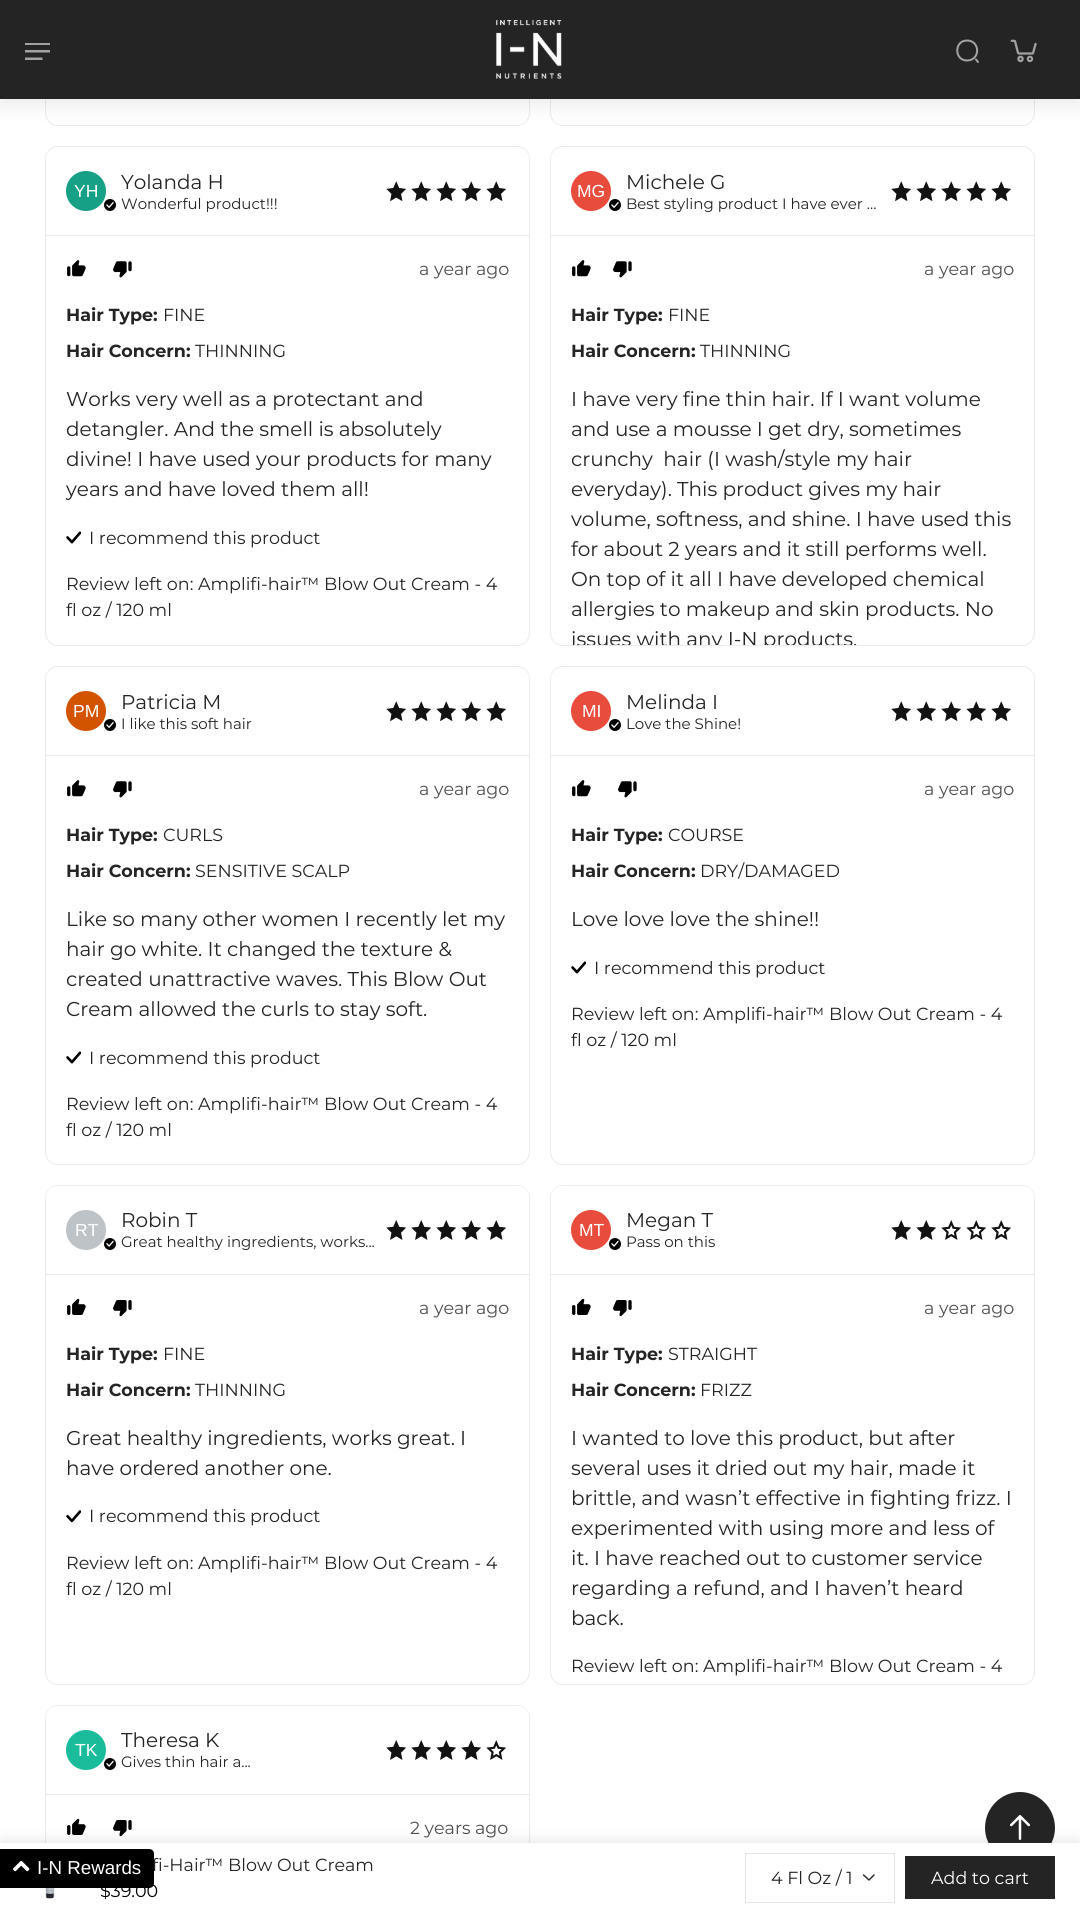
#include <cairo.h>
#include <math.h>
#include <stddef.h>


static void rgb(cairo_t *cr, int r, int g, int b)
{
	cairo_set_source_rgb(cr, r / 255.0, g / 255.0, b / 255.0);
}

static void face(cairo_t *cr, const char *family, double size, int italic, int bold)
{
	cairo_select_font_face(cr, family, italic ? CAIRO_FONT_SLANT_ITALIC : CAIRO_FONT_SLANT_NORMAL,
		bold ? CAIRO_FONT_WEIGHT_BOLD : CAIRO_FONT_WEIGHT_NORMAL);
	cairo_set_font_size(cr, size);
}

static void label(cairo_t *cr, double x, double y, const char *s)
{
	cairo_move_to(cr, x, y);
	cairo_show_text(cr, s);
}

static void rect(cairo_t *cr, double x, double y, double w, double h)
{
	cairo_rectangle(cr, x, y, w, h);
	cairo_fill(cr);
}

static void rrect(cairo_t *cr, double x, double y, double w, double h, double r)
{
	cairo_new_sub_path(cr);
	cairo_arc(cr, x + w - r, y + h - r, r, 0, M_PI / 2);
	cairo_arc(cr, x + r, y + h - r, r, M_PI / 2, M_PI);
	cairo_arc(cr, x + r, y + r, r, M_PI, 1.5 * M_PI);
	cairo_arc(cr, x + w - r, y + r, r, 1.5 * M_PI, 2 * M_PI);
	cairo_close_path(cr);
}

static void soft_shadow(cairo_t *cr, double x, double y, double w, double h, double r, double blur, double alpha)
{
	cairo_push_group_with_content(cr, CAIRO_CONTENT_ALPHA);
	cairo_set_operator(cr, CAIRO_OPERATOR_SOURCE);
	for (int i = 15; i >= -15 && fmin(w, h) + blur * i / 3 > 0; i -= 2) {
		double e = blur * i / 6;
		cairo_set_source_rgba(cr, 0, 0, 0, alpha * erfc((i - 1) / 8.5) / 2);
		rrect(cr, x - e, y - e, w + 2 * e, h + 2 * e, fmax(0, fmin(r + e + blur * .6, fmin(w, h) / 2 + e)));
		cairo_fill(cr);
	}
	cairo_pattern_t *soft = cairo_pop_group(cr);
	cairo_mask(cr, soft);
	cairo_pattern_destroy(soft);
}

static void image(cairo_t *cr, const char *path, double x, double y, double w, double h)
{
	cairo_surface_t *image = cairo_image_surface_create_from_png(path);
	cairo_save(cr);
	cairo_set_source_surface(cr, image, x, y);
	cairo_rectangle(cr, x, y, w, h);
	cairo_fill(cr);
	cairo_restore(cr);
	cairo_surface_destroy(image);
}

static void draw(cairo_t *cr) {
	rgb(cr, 255, 255, 255);
	cairo_paint(cr);
	rrect(cr, 45.5, -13.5, 484, 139, 12.5);
	rgb(cr, 235, 235, 235);
	cairo_set_line_width(cr, 1);
	cairo_stroke(cr);
	rrect(cr, 550.5, -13.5, 484, 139, 12.5);
	cairo_stroke(cr);
	rgb(cr, 36, 36, 36);
	soft_shadow(cr, 0, 6, 1080, 99, 0, 9.5, 0.1);
	rgb(cr, 36, 36, 36);
	rect(cr, 0, 0, 1080, 99);
	image(cr, "image0.png", 25, 43, 25, 17);
	image(cr, "image1.png", 496, 20, 66, 59);
	cairo_new_path(cr);
	cairo_move_to(cr, 967, 60.5);
	cairo_curve_to(cr, 980.5, 60.5, 980.5, 40.5, 967, 40.5);
	cairo_curve_to(cr, 954, 40.5, 954, 60.5, 967, 60.5);
	cairo_close_path(cr);
	cairo_move_to(cr, 978, 62);
	cairo_line_to(cr, 976, 59.5);
	rgb(cr, 163, 163, 163);
	cairo_set_line_width(cr, 2);
	cairo_set_line_cap(cr, CAIRO_LINE_CAP_ROUND);
	cairo_set_line_join(cr, CAIRO_LINE_JOIN_ROUND);
	cairo_stroke(cr);
	image(cr, "image2.png", 1010, 39, 27, 24);
	rrect(cr, 45.5, 146.5, 484, 499, 12.5);
	rgb(cr, 235, 235, 235);
	cairo_set_line_width(cr, 1);
	cairo_set_line_cap(cr, CAIRO_LINE_CAP_BUTT);
	cairo_set_line_join(cr, CAIRO_LINE_JOIN_MITER);
	cairo_stroke(cr);
	rgb(cr, 255, 255, 255);
	cairo_new_path(cr);
	cairo_move_to(cr, 57, 148);
	cairo_line_to(cr, 518, 148);
	cairo_curve_to(cr, 524, 148, 529, 153, 529, 159);
	cairo_line_to(cr, 529, 236);
	cairo_line_to(cr, 46, 236);
	cairo_line_to(cr, 46, 159);
	cairo_curve_to(cr, 46, 153, 51, 148, 57, 148);
	cairo_close_path(cr);
	cairo_fill(cr);
	rgb(cr, 235, 235, 235);
	rect(cr, 46, 235, 483, 1);
	rgb(cr, 22, 160, 133);
	cairo_arc(cr, 86, 191, 20, 0, 2 * M_PI);
	cairo_fill(cr);
	face(cr, "Liberation Sans", 17.5, 0, 0);
	rgb(cr, 255, 255, 255);
	label(cr, 74, 197, "YH");
	rgb(cr, 0, 0, 0);
	cairo_new_path(cr);
	cairo_arc(cr, 110, 205, 6, 0, 2 * M_PI);
	cairo_fill(cr);
	image(cr, "image3.png", 106, 202, 8, 6);
	face(cr, "Montserrat", 20, 0, 0);
	rgb(cr, 36, 36, 36);
	label(cr, 121, 189, "Yolanda H");
	face(cr, "Montserrat", 15, 0, 0);
	label(cr, 121, 209, "Wonderful product!!!");
	image(cr, "image4.png", 386, 181, 20, 20);
	image(cr, "image4.png", 411, 181, 20, 20);
	image(cr, "image4.png", 436, 181, 20, 20);
	image(cr, "image4.png", 461, 181, 20, 20);
	image(cr, "image4.png", 486, 181, 20, 20);
	image(cr, "image5.png", 388, 182, 15, 18);
	image(cr, "image5.png", 413, 182, 15, 18);
	image(cr, "image5.png", 438, 182, 15, 18);
	image(cr, "image5.png", 463, 182, 15, 18);
	image(cr, "image5.png", 488, 182, 15, 18);
	image(cr, "image6.png", 67, 260, 19, 17);
	image(cr, "image7.png", 113, 261, 19, 17);
	face(cr, "Montserrat", 17.5, 0, 0);
	rgb(cr, 80, 80, 80);
	label(cr, 419, 275, "a year ago");
	face(cr, "Montserrat", 17.5, 0, 1);
	rgb(cr, 36, 36, 36);
	label(cr, 66, 321, "Hair Type:");
	face(cr, "Montserrat", 17.5, 0, 0);
	label(cr, 163, 321, "FINE");
	face(cr, "Montserrat", 17.5, 0, 1);
	label(cr, 66, 357, "Hair Concern:");
	face(cr, "Montserrat", 17.5, 0, 0);
	label(cr, 195, 357, "THINNING");
	face(cr, "Montserrat", 20, 0, 0);
	label(cr, 66, 406, "Works very well as a protectant and");
	label(cr, 66, 436, "detangler. And the smell is absolutely");
	label(cr, 66, 466, "divine! I have used your products for many");
	label(cr, 66, 496, "years and have loved them all!");
	image(cr, "image8.png", 66, 531, 15, 13);
	face(cr, "Montserrat", 17.5, 0, 0);
	label(cr, 89, 544, "I recommend this product");
	label(cr, 66, 590, "Review left on: Amplifi-hair™ Blow Out Cream - 4");
	label(cr, 66, 616, "fl oz / 120 ml");
	rrect(cr, 550.5, 146.5, 484, 499, 12.5);
	rgb(cr, 235, 235, 235);
	cairo_stroke(cr);
	rgb(cr, 255, 255, 255);
	cairo_new_path(cr);
	cairo_move_to(cr, 562, 148);
	cairo_line_to(cr, 1023, 148);
	cairo_curve_to(cr, 1029, 148, 1034, 153, 1034, 159);
	cairo_line_to(cr, 1034, 236);
	cairo_line_to(cr, 551, 236);
	cairo_line_to(cr, 551, 159);
	cairo_curve_to(cr, 551, 153, 556, 148, 562, 148);
	cairo_close_path(cr);
	cairo_fill(cr);
	rgb(cr, 235, 235, 235);
	rect(cr, 551, 235, 483, 1);
	rgb(cr, 231, 76, 60);
	cairo_arc(cr, 591, 191, 20, 0, 2 * M_PI);
	cairo_fill(cr);
	face(cr, "Liberation Sans", 17.5, 0, 0);
	rgb(cr, 255, 255, 255);
	label(cr, 577, 197, "MG");
	rgb(cr, 0, 0, 0);
	cairo_new_path(cr);
	cairo_arc(cr, 615, 205, 6, 0, 2 * M_PI);
	cairo_fill(cr);
	image(cr, "image3.png", 611, 202, 8, 6);
	face(cr, "Montserrat", 20, 0, 0);
	rgb(cr, 36, 36, 36);
	label(cr, 626, 189, "Michele G");
	face(cr, "Montserrat", 15, 0, 0);
	label(cr, 626, 209, "Best styling product I have ever …");
	image(cr, "image4.png", 891, 181, 20, 20);
	image(cr, "image4.png", 916, 181, 20, 20);
	image(cr, "image4.png", 941, 181, 20, 20);
	image(cr, "image4.png", 966, 181, 20, 20);
	image(cr, "image4.png", 991, 181, 20, 20);
	image(cr, "image5.png", 893, 182, 15, 18);
	image(cr, "image5.png", 918, 182, 15, 18);
	image(cr, "image5.png", 943, 182, 15, 18);
	image(cr, "image5.png", 968, 182, 15, 18);
	image(cr, "image5.png", 993, 182, 15, 18);
	image(cr, "image6.png", 572, 260, 19, 17);
	image(cr, "image7.png", 613, 261, 19, 17);
	face(cr, "Montserrat", 17.5, 0, 0);
	rgb(cr, 80, 80, 80);
	label(cr, 924, 275, "a year ago");
	face(cr, "Montserrat", 17.5, 0, 1);
	rgb(cr, 36, 36, 36);
	label(cr, 571, 321, "Hair Type:");
	face(cr, "Montserrat", 17.5, 0, 0);
	label(cr, 668, 321, "FINE");
	face(cr, "Montserrat", 17.5, 0, 1);
	label(cr, 571, 357, "Hair Concern:");
	face(cr, "Montserrat", 17.5, 0, 0);
	label(cr, 700, 357, "THINNING");
	face(cr, "Montserrat", 20, 0, 0);
	label(cr, 571, 406, "I have very fine thin hair. If I want volume");
	label(cr, 571, 436, "and use a mousse I get dry, sometimes");
	label(cr, 571, 466, "crunchy  hair (I wash/style my hair");
	label(cr, 571, 496, "everyday). This product gives my hair");
	label(cr, 571, 526, "volume, softness, and shine. I have used this");
	label(cr, 571, 556, "for about 2 years and it still performs well.");
	label(cr, 571, 586, "On top of it all I have developed chemical");
	label(cr, 571, 616, "allergies to makeup and skin products. No");
	cairo_save(cr);
	rrect(cr, 551, 148, 483, 497, 11);
	cairo_clip(cr);
	label(cr, 571, 646, "issues with any I-N products.");
	cairo_restore(cr);
	rrect(cr, 45.5, 666.5, 484, 498, 12.5);
	rgb(cr, 235, 235, 235);
	cairo_stroke(cr);
	rgb(cr, 255, 255, 255);
	cairo_new_path(cr);
	cairo_move_to(cr, 57, 668);
	cairo_line_to(cr, 518, 668);
	cairo_curve_to(cr, 524, 668, 529, 673, 529, 679);
	cairo_line_to(cr, 529, 756);
	cairo_line_to(cr, 46, 756);
	cairo_line_to(cr, 46, 679);
	cairo_curve_to(cr, 46, 673, 51, 668, 57, 668);
	cairo_close_path(cr);
	cairo_fill(cr);
	rgb(cr, 235, 235, 235);
	rect(cr, 46, 755, 483, 1);
	rgb(cr, 211, 84, 0);
	cairo_arc(cr, 86, 711, 20, 0, 2 * M_PI);
	cairo_fill(cr);
	face(cr, "Liberation Sans", 17.5, 0, 0);
	rgb(cr, 255, 255, 255);
	label(cr, 73, 717, "PM");
	rgb(cr, 0, 0, 0);
	cairo_new_path(cr);
	cairo_arc(cr, 110, 725, 6, 0, 2 * M_PI);
	cairo_fill(cr);
	image(cr, "image3.png", 106, 722, 8, 6);
	face(cr, "Montserrat", 20, 0, 0);
	rgb(cr, 36, 36, 36);
	label(cr, 121, 709, "Patricia M");
	face(cr, "Montserrat", 15, 0, 0);
	label(cr, 121, 729, "I like this soft hair");
	image(cr, "image4.png", 386, 701, 20, 20);
	image(cr, "image4.png", 411, 701, 20, 20);
	image(cr, "image4.png", 436, 701, 20, 20);
	image(cr, "image4.png", 461, 701, 20, 20);
	image(cr, "image4.png", 486, 701, 20, 20);
	image(cr, "image5.png", 388, 702, 15, 18);
	image(cr, "image5.png", 413, 702, 15, 18);
	image(cr, "image5.png", 438, 702, 15, 18);
	image(cr, "image5.png", 463, 702, 15, 18);
	image(cr, "image5.png", 488, 702, 15, 18);
	image(cr, "image6.png", 67, 780, 19, 17);
	image(cr, "image7.png", 113, 781, 19, 17);
	face(cr, "Montserrat", 17.5, 0, 0);
	rgb(cr, 80, 80, 80);
	label(cr, 419, 795, "a year ago");
	face(cr, "Montserrat", 17.5, 0, 1);
	rgb(cr, 36, 36, 36);
	label(cr, 66, 841, "Hair Type:");
	face(cr, "Montserrat", 17.5, 0, 0);
	label(cr, 163, 841, "CURLS");
	face(cr, "Montserrat", 17.5, 0, 1);
	label(cr, 66, 877, "Hair Concern:");
	face(cr, "Montserrat", 17.5, 0, 0);
	label(cr, 195, 877, "SENSITIVE SCALP");
	face(cr, "Montserrat", 20, 0, 0);
	label(cr, 66, 926, "Like so many other women I recently let my");
	label(cr, 66, 956, "hair go white. It changed the texture &");
	label(cr, 66, 986, "created unattractive waves. This Blow Out");
	label(cr, 66, 1016, "Cream allowed the curls to stay soft.");
	image(cr, "image8.png", 66, 1051, 15, 13);
	face(cr, "Montserrat", 17.5, 0, 0);
	label(cr, 89, 1064, "I recommend this product");
	label(cr, 66, 1110, "Review left on: Amplifi-hair™ Blow Out Cream - 4");
	label(cr, 66, 1136, "fl oz / 120 ml");
	rrect(cr, 550.5, 666.5, 484, 498, 12.5);
	rgb(cr, 235, 235, 235);
	cairo_stroke(cr);
	rgb(cr, 255, 255, 255);
	cairo_new_path(cr);
	cairo_move_to(cr, 562, 668);
	cairo_line_to(cr, 1023, 668);
	cairo_curve_to(cr, 1029, 668, 1034, 673, 1034, 679);
	cairo_line_to(cr, 1034, 756);
	cairo_line_to(cr, 551, 756);
	cairo_line_to(cr, 551, 679);
	cairo_curve_to(cr, 551, 673, 556, 668, 562, 668);
	cairo_close_path(cr);
	cairo_fill(cr);
	rgb(cr, 235, 235, 235);
	rect(cr, 551, 755, 483, 1);
	rgb(cr, 231, 76, 60);
	cairo_arc(cr, 591, 711, 20, 0, 2 * M_PI);
	cairo_fill(cr);
	face(cr, "Liberation Sans", 17.5, 0, 0);
	rgb(cr, 255, 255, 255);
	label(cr, 582, 717, "MI");
	rgb(cr, 0, 0, 0);
	cairo_new_path(cr);
	cairo_arc(cr, 615, 725, 6, 0, 2 * M_PI);
	cairo_fill(cr);
	image(cr, "image3.png", 611, 722, 8, 6);
	face(cr, "Montserrat", 20, 0, 0);
	rgb(cr, 36, 36, 36);
	label(cr, 626, 709, "Melinda I");
	face(cr, "Montserrat", 15, 0, 0);
	label(cr, 626, 729, "Love the Shine!");
	image(cr, "image4.png", 891, 701, 20, 20);
	image(cr, "image4.png", 916, 701, 20, 20);
	image(cr, "image4.png", 941, 701, 20, 20);
	image(cr, "image4.png", 966, 701, 20, 20);
	image(cr, "image4.png", 991, 701, 20, 20);
	image(cr, "image5.png", 893, 702, 15, 18);
	image(cr, "image5.png", 918, 702, 15, 18);
	image(cr, "image5.png", 943, 702, 15, 18);
	image(cr, "image5.png", 968, 702, 15, 18);
	image(cr, "image5.png", 993, 702, 15, 18);
	image(cr, "image6.png", 572, 780, 19, 17);
	image(cr, "image7.png", 618, 781, 19, 17);
	face(cr, "Montserrat", 17.5, 0, 0);
	rgb(cr, 80, 80, 80);
	label(cr, 924, 795, "a year ago");
	face(cr, "Montserrat", 17.5, 0, 1);
	rgb(cr, 36, 36, 36);
	label(cr, 571, 841, "Hair Type:");
	face(cr, "Montserrat", 17.5, 0, 0);
	label(cr, 668, 841, "COURSE");
	face(cr, "Montserrat", 17.5, 0, 1);
	label(cr, 571, 877, "Hair Concern:");
	face(cr, "Montserrat", 17.5, 0, 0);
	label(cr, 700, 877, "DRY/DAMAGED");
	face(cr, "Montserrat", 20, 0, 0);
	label(cr, 571, 926, "Love love love the shine!!");
	image(cr, "image8.png", 571, 961, 15, 13);
	face(cr, "Montserrat", 17.5, 0, 0);
	label(cr, 594, 974, "I recommend this product");
	label(cr, 571, 1020, "Review left on: Amplifi-hair™ Blow Out Cream - 4");
	label(cr, 571, 1046, "fl oz / 120 ml");
	rrect(cr, 45.5, 1185.5, 484, 499, 12.5);
	rgb(cr, 235, 235, 235);
	cairo_stroke(cr);
	rgb(cr, 255, 255, 255);
	cairo_new_path(cr);
	cairo_move_to(cr, 57, 1186);
	cairo_line_to(cr, 518, 1186);
	cairo_curve_to(cr, 524, 1186, 529, 1191, 529, 1197);
	cairo_line_to(cr, 529, 1275);
	cairo_line_to(cr, 46, 1275);
	cairo_line_to(cr, 46, 1197);
	cairo_curve_to(cr, 46, 1191, 51, 1186, 57, 1186);
	cairo_close_path(cr);
	cairo_fill(cr);
	rgb(cr, 235, 235, 235);
	rect(cr, 46, 1274, 483, 1);
	rgb(cr, 189, 195, 199);
	cairo_arc(cr, 86, 1230, 20, 0, 2 * M_PI);
	cairo_fill(cr);
	face(cr, "Liberation Sans", 17.5, 0, 0);
	rgb(cr, 255, 255, 255);
	label(cr, 75, 1236, "RT");
	rgb(cr, 0, 0, 0);
	cairo_new_path(cr);
	cairo_arc(cr, 110, 1244, 6, 0, 2 * M_PI);
	cairo_fill(cr);
	image(cr, "image9.png", 106, 1240, 8, 7);
	face(cr, "Montserrat", 20, 0, 0);
	rgb(cr, 36, 36, 36);
	label(cr, 121, 1227, "Robin T");
	face(cr, "Montserrat", 15, 0, 0);
	label(cr, 121, 1247, "Great healthy ingredients, works...");
	image(cr, "image10.png", 386, 1220, 20, 20);
	image(cr, "image10.png", 411, 1220, 20, 20);
	image(cr, "image10.png", 436, 1220, 20, 20);
	image(cr, "image10.png", 461, 1220, 20, 20);
	image(cr, "image10.png", 486, 1220, 20, 20);
	image(cr, "image11.png", 387, 1221, 18, 18);
	image(cr, "image11.png", 412, 1221, 18, 18);
	image(cr, "image11.png", 437, 1221, 18, 18);
	image(cr, "image11.png", 462, 1221, 18, 18);
	image(cr, "image11.png", 487, 1221, 18, 18);
	image(cr, "image12.png", 67, 1298, 19, 17);
	image(cr, "image13.png", 113, 1300, 19, 17);
	face(cr, "Montserrat", 17.5, 0, 0);
	rgb(cr, 80, 80, 80);
	label(cr, 419, 1314, "a year ago");
	face(cr, "Montserrat", 17.5, 0, 1);
	rgb(cr, 36, 36, 36);
	label(cr, 66, 1360, "Hair Type:");
	face(cr, "Montserrat", 17.5, 0, 0);
	label(cr, 163, 1360, "FINE");
	face(cr, "Montserrat", 17.5, 0, 1);
	label(cr, 66, 1396, "Hair Concern:");
	face(cr, "Montserrat", 17.5, 0, 0);
	label(cr, 195, 1396, "THINNING");
	face(cr, "Montserrat", 20, 0, 0);
	label(cr, 66, 1445, "Great healthy ingredients, works great. I");
	label(cr, 66, 1475, "have ordered another one.");
	image(cr, "image14.png", 66, 1510, 15, 13);
	face(cr, "Montserrat", 17.5, 0, 0);
	label(cr, 89, 1522, "I recommend this product");
	label(cr, 66, 1569, "Review left on: Amplifi-hair™ Blow Out Cream - 4");
	label(cr, 66, 1595, "fl oz / 120 ml");
	rrect(cr, 550.5, 1185.5, 484, 499, 12.5);
	rgb(cr, 235, 235, 235);
	cairo_stroke(cr);
	rgb(cr, 255, 255, 255);
	cairo_new_path(cr);
	cairo_move_to(cr, 562, 1186);
	cairo_line_to(cr, 1023, 1186);
	cairo_curve_to(cr, 1029, 1186, 1034, 1191, 1034, 1197);
	cairo_line_to(cr, 1034, 1275);
	cairo_line_to(cr, 551, 1275);
	cairo_line_to(cr, 551, 1197);
	cairo_curve_to(cr, 551, 1191, 556, 1186, 562, 1186);
	cairo_close_path(cr);
	cairo_fill(cr);
	rgb(cr, 235, 235, 235);
	rect(cr, 551, 1274, 483, 1);
	rgb(cr, 231, 76, 60);
	cairo_arc(cr, 591, 1230, 20, 0, 2 * M_PI);
	cairo_fill(cr);
	face(cr, "Liberation Sans", 17.5, 0, 0);
	rgb(cr, 255, 255, 255);
	label(cr, 579, 1236, "MT");
	rgb(cr, 0, 0, 0);
	cairo_new_path(cr);
	cairo_arc(cr, 615, 1244, 6, 0, 2 * M_PI);
	cairo_fill(cr);
	image(cr, "image9.png", 611, 1240, 8, 7);
	face(cr, "Montserrat", 20, 0, 0);
	rgb(cr, 36, 36, 36);
	label(cr, 626, 1227, "Megan T");
	face(cr, "Montserrat", 15, 0, 0);
	label(cr, 626, 1247, "Pass on this");
	image(cr, "image10.png", 891, 1220, 20, 20);
	image(cr, "image10.png", 916, 1220, 20, 20);
	image(cr, "image10.png", 941, 1220, 20, 20);
	image(cr, "image10.png", 966, 1220, 20, 20);
	image(cr, "image10.png", 991, 1220, 20, 20);
	image(cr, "image11.png", 892, 1221, 18, 18);
	image(cr, "image11.png", 917, 1221, 18, 18);
	image(cr, "image12.png", 572, 1298, 19, 17);
	image(cr, "image13.png", 613, 1300, 19, 17);
	face(cr, "Montserrat", 17.5, 0, 0);
	rgb(cr, 80, 80, 80);
	label(cr, 924, 1314, "a year ago");
	face(cr, "Montserrat", 17.5, 0, 1);
	rgb(cr, 36, 36, 36);
	label(cr, 571, 1360, "Hair Type:");
	face(cr, "Montserrat", 17.5, 0, 0);
	label(cr, 668, 1360, "STRAIGHT");
	face(cr, "Montserrat", 17.5, 0, 1);
	label(cr, 571, 1396, "Hair Concern:");
	face(cr, "Montserrat", 17.5, 0, 0);
	label(cr, 700, 1396, "FRIZZ");
	face(cr, "Montserrat", 20, 0, 0);
	label(cr, 571, 1445, "I wanted to love this product, but after");
	label(cr, 571, 1475, "several uses it dried out my hair, made it");
	label(cr, 571, 1505, "brittle, and wasn’t effective in fighting frizz. I");
	label(cr, 571, 1535, "experimented with using more and less of");
	label(cr, 571, 1565, "it. I have reached out to customer service");
	label(cr, 571, 1595, "regarding a refund, and I haven’t heard");
	label(cr, 571, 1625, "back.");
	face(cr, "Montserrat", 17.5, 0, 0);
	label(cr, 571, 1672, "Review left on: Amplifi-hair™ Blow Out Cream - 4");
	rrect(cr, 45.5, 1705.5, 484, 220, 12.5);
	rgb(cr, 235, 235, 235);
	cairo_stroke(cr);
	rgb(cr, 255, 255, 255);
	cairo_new_path(cr);
	cairo_move_to(cr, 57, 1706);
	cairo_line_to(cr, 518, 1706);
	cairo_curve_to(cr, 524, 1706, 529, 1711, 529, 1717);
	cairo_line_to(cr, 529, 1795);
	cairo_line_to(cr, 46, 1795);
	cairo_line_to(cr, 46, 1717);
	cairo_curve_to(cr, 46, 1711, 51, 1706, 57, 1706);
	cairo_close_path(cr);
	cairo_fill(cr);
	rgb(cr, 235, 235, 235);
	rect(cr, 46, 1794, 483, 1);
	rgb(cr, 26, 188, 156);
	cairo_arc(cr, 86, 1750, 20, 0, 2 * M_PI);
	cairo_fill(cr);
	face(cr, "Liberation Sans", 17.5, 0, 0);
	rgb(cr, 255, 255, 255);
	label(cr, 75, 1756, "TK");
	rgb(cr, 0, 0, 0);
	cairo_new_path(cr);
	cairo_arc(cr, 110, 1764, 6, 0, 2 * M_PI);
	cairo_fill(cr);
	image(cr, "image9.png", 106, 1760, 8, 7);
	face(cr, "Montserrat", 20, 0, 0);
	rgb(cr, 36, 36, 36);
	label(cr, 121, 1747, "Theresa K");
	face(cr, "Montserrat", 15, 0, 0);
	label(cr, 121, 1767, "Gives thin hair a...");
	image(cr, "image10.png", 386, 1740, 20, 20);
	image(cr, "image10.png", 411, 1740, 20, 20);
	image(cr, "image10.png", 436, 1740, 20, 20);
	image(cr, "image10.png", 461, 1740, 20, 20);
	image(cr, "image10.png", 486, 1740, 20, 20);
	image(cr, "image11.png", 387, 1741, 18, 18);
	image(cr, "image11.png", 412, 1741, 18, 18);
	image(cr, "image11.png", 437, 1741, 18, 18);
	image(cr, "image11.png", 462, 1741, 18, 18);
	image(cr, "image12.png", 67, 1818, 19, 17);
	image(cr, "image13.png", 113, 1820, 19, 17);
	face(cr, "Montserrat", 17.5, 0, 0);
	rgb(cr, 80, 80, 80);
	label(cr, 410, 1834, "2 years ago");
	rgb(cr, 36, 36, 36);
	cairo_new_path(cr);
	cairo_move_to(cr, 985, 1828);
	cairo_curve_to(cr, 985, 1808, 1001, 1792, 1020, 1792);
	cairo_curve_to(cr, 1039, 1792, 1055, 1808, 1055, 1828);
	cairo_curve_to(cr, 1055, 1847, 1039, 1862, 1020, 1862);
	cairo_curve_to(cr, 1001, 1862, 985, 1847, 985, 1828);
	cairo_close_path(cr);
	cairo_fill(cr);
	image(cr, "image16.png", 1010, 1815, 20, 25);
	rgb(cr, 36, 36, 36);
	soft_shadow(cr, 1, 1839, 1078, 67, 0, 6, 0.1);
	rgb(cr, 255, 255, 255);
	rect(cr, 0, 1843, 1080, 69);
	image(cr, "image15.png", 45, 1888, 10, 11);
	rgb(cr, 36, 36, 36);
	label(cr, 152, 1871, "fi-Hair™ Blow Out Cream");
	rgb(cr, 0, 0, 0);
	label(cr, 100, 1897, "$39.00");
	cairo_rectangle(cr, 745.5, 1853.5, 149, 49);
	rgb(cr, 227, 227, 227);
	cairo_stroke(cr);
	rgb(cr, 36, 36, 36);
	label(cr, 771, 1884, "4 Fl Oz / 1");
	cairo_new_path(cr);
	cairo_move_to(cr, 863.5, 1875);
	cairo_line_to(cr, 869, 1880);
	cairo_line_to(cr, 874, 1875);
	cairo_set_line_width(cr, 1.4);
	cairo_set_line_cap(cr, CAIRO_LINE_CAP_ROUND);
	cairo_set_line_join(cr, CAIRO_LINE_JOIN_ROUND);
	cairo_stroke(cr);
	rect(cr, 905, 1856, 150, 43);
	rgb(cr, 255, 255, 255);
	label(cr, 931, 1884, "Add to cart");
	rgb(cr, 0, 0, 0);
	cairo_new_path(cr);
	cairo_move_to(cr, 0, 1849);
	cairo_line_to(cr, 149, 1849);
	cairo_curve_to(cr, 152, 1849, 154, 1851, 154, 1854);
	cairo_line_to(cr, 154, 1883);
	cairo_curve_to(cr, 154, 1886, 152, 1888, 149, 1888);
	cairo_line_to(cr, 0, 1888);
	cairo_close_path(cr);
	cairo_fill(cr);
	image(cr, "image17.png", 13, 1860, 17, 12);
	face(cr, "Liberation Sans", 18.75, 0, 0);
	rgb(cr, 255, 255, 255);
	label(cr, 37, 1874, "I-N Rewards");
}

int main(void) {
	cairo_surface_t *surface = cairo_image_surface_create(CAIRO_FORMAT_RGB24, 1080, 1912);
	cairo_t *cr = cairo_create(surface);
	cairo_font_options_t *options = cairo_font_options_create();
	cairo_font_options_set_hint_metrics(options, CAIRO_HINT_METRICS_OFF);
	cairo_font_options_set_hint_style(options, CAIRO_HINT_STYLE_NONE);
	cairo_set_font_options(cr, options);
	cairo_set_miter_limit(cr, 4);
	draw(cr);
	cairo_surface_write_to_png(surface, "render.png");
	cairo_font_options_destroy(options);
	cairo_destroy(cr);
	cairo_surface_destroy(surface);
	return 0;
}
